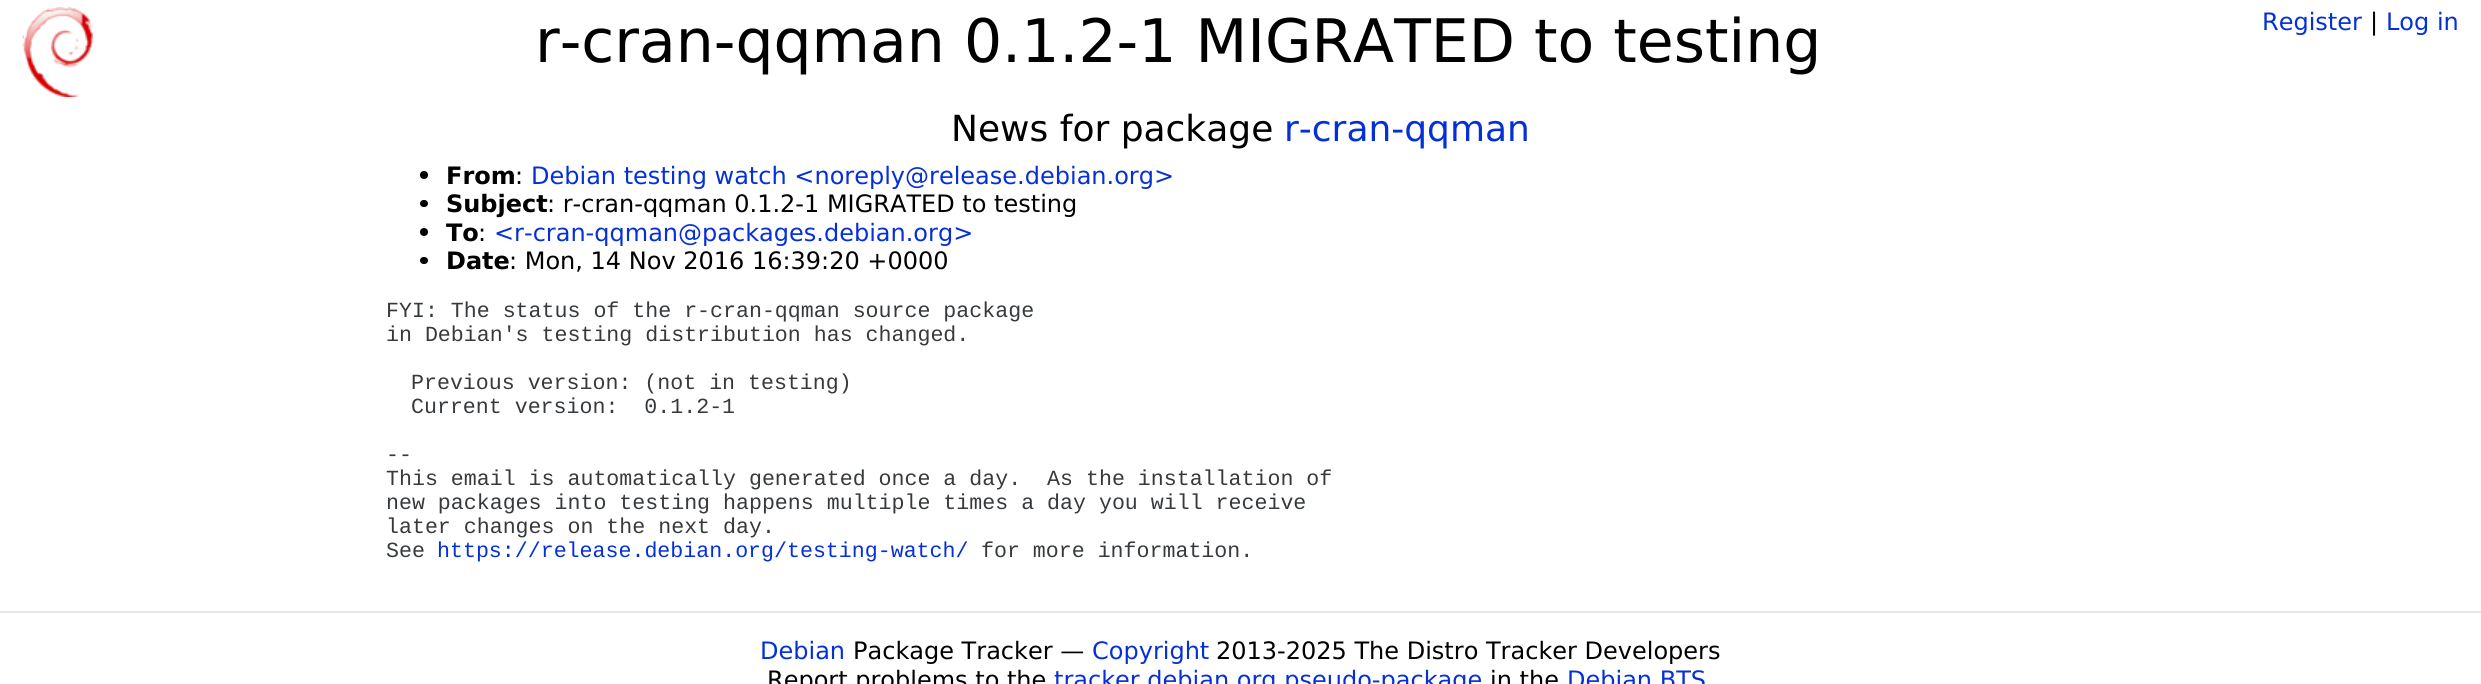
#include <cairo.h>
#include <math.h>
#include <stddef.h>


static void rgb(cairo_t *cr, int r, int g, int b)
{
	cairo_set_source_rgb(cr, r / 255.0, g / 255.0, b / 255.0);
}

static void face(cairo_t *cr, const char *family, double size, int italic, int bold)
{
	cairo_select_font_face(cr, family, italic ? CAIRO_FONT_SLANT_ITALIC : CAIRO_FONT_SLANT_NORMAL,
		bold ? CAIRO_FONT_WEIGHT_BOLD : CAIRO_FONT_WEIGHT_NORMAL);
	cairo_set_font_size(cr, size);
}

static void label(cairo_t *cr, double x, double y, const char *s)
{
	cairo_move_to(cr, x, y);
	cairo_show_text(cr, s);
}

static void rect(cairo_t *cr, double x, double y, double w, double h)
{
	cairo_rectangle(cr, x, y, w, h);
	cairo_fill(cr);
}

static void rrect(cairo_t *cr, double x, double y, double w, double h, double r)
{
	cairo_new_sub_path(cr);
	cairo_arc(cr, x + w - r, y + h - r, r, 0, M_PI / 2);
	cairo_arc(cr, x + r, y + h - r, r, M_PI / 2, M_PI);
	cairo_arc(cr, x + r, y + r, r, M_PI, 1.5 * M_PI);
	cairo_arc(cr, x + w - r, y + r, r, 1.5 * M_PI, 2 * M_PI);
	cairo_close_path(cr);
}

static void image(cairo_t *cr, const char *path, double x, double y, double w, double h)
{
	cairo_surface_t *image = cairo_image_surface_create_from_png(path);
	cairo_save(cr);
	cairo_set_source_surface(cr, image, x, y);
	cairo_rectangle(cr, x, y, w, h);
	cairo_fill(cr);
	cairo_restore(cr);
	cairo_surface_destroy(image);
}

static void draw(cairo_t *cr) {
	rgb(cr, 255, 255, 255);
	cairo_paint(cr);
	image(cr, "image0.png", 22, 7, 71, 90);
	face(cr, "DejaVu Sans", 60, 0, 0);
	rgb(cr, 0, 0, 0);
	label(cr, 535, 62, "r-cran-qqman 0.1.2-1 MIGRATED to testing");
	face(cr, "DejaVu Sans", 24, 0, 0);
	rgb(cr, 5, 48, 215);
	label(cr, 2262, 30, "Register");
	rgb(cr, 0, 0, 0);
	label(cr, 2370, 30, "|");
	rgb(cr, 5, 48, 215);
	label(cr, 2386, 30, "Log in");
	face(cr, "DejaVu Sans", 36, 0, 0);
	rgb(cr, 0, 0, 0);
	label(cr, 951, 141, "News for package");
	rgb(cr, 5, 48, 215);
	label(cr, 1284, 141, "r-cran-qqman");
	rgb(cr, 0, 0, 0);
	cairo_new_path(cr);
	cairo_arc(cr, 424, 175, 4, 0, 2 * M_PI);
	cairo_fill(cr);
	face(cr, "DejaVu Sans", 24, 0, 1);
	label(cr, 446, 184, "From");
	face(cr, "DejaVu Sans", 24, 0, 0);
	label(cr, 515, 184, ":");
	rgb(cr, 5, 48, 215);
	label(cr, 531, 184, "Debian testing watch <noreply@release.debian.org>");
	rgb(cr, 0, 0, 0);
	rrect(cr, 420, 200, 8, 7, 3.5);
	cairo_fill(cr);
	face(cr, "DejaVu Sans", 24, 0, 1);
	label(cr, 446, 212, "Subject");
	face(cr, "DejaVu Sans", 24, 0, 0);
	label(cr, 547, 212, ": r-cran-qqman 0.1.2-1 MIGRATED to testing");
	cairo_new_path(cr);
	cairo_arc(cr, 424, 232, 4, 0, 2 * M_PI);
	cairo_fill(cr);
	face(cr, "DejaVu Sans", 24, 0, 1);
	label(cr, 446, 241, "To");
	face(cr, "DejaVu Sans", 24, 0, 0);
	label(cr, 478, 241, ":");
	rgb(cr, 5, 48, 215);
	label(cr, 494, 241, "<r-cran-qqman@packages.debian.org>");
	rgb(cr, 0, 0, 0);
	rrect(cr, 420, 257, 8, 7, 3.5);
	cairo_fill(cr);
	face(cr, "DejaVu Sans", 24, 0, 1);
	label(cr, 446, 269, "Date");
	face(cr, "DejaVu Sans", 24, 0, 0);
	label(cr, 509, 269, ": Mon, 14 Nov 2016 16:39:20 +0000");
	face(cr, "Liberation Mono", 21.6, 0, 0);
	rgb(cr, 55, 58, 60);
	label(cr, 386, 317, "FYI: The status of the r-cran-qqman source package");
	label(cr, 386, 341, "in Debian's testing distribution has changed.");
	label(cr, 411, 389, "Previous version: (not in testing)");
	label(cr, 411, 413, "Current version:  0.1.2-1");
	label(cr, 386, 461, "--");
	label(cr, 386, 485, "This email is automatically generated once a day.  As the installation of");
	label(cr, 386, 509, "new packages into testing happens multiple times a day you will receive");
	label(cr, 386, 533, "later changes on the next day.");
	label(cr, 386, 557, "See");
	rgb(cr, 5, 48, 215);
	label(cr, 437, 557, "https://release.debian.org/testing-watch/");
	rgb(cr, 55, 58, 60);
	label(cr, 981, 557, "for more information.");
	rgb(cr, 230, 230, 230);
	rect(cr, 0, 611, 2481, 2);
	face(cr, "DejaVu Sans", 24, 0, 0);
	rgb(cr, 5, 48, 215);
	label(cr, 760, 659, "Debian");
	rgb(cr, 0, 0, 0);
	label(cr, 853, 659, "Package Tracker —");
	rgb(cr, 5, 48, 215);
	label(cr, 1092, 659, "Copyright");
	rgb(cr, 0, 0, 0);
	label(cr, 1216, 659, "2013-2025 The Distro Tracker Developers");
	label(cr, 767, 688, "Report problems to the");
	rgb(cr, 5, 48, 215);
	label(cr, 1054, 688, "tracker.debian.org pseudo-package");
	rgb(cr, 0, 0, 0);
	label(cr, 1490, 688, "in the");
	rgb(cr, 5, 48, 215);
	label(cr, 1567, 688, "Debian BTS");
}

int main(void) {
	cairo_surface_t *surface = cairo_image_surface_create(CAIRO_FORMAT_RGB24, 2481, 684);
	cairo_t *cr = cairo_create(surface);
	cairo_font_options_t *options = cairo_font_options_create();
	cairo_font_options_set_hint_metrics(options, CAIRO_HINT_METRICS_OFF);
	cairo_font_options_set_hint_style(options, CAIRO_HINT_STYLE_NONE);
	cairo_set_font_options(cr, options);
	cairo_set_miter_limit(cr, 4);
	draw(cr);
	cairo_surface_write_to_png(surface, "render.png");
	cairo_font_options_destroy(options);
	cairo_destroy(cr);
	cairo_surface_destroy(surface);
	return 0;
}
